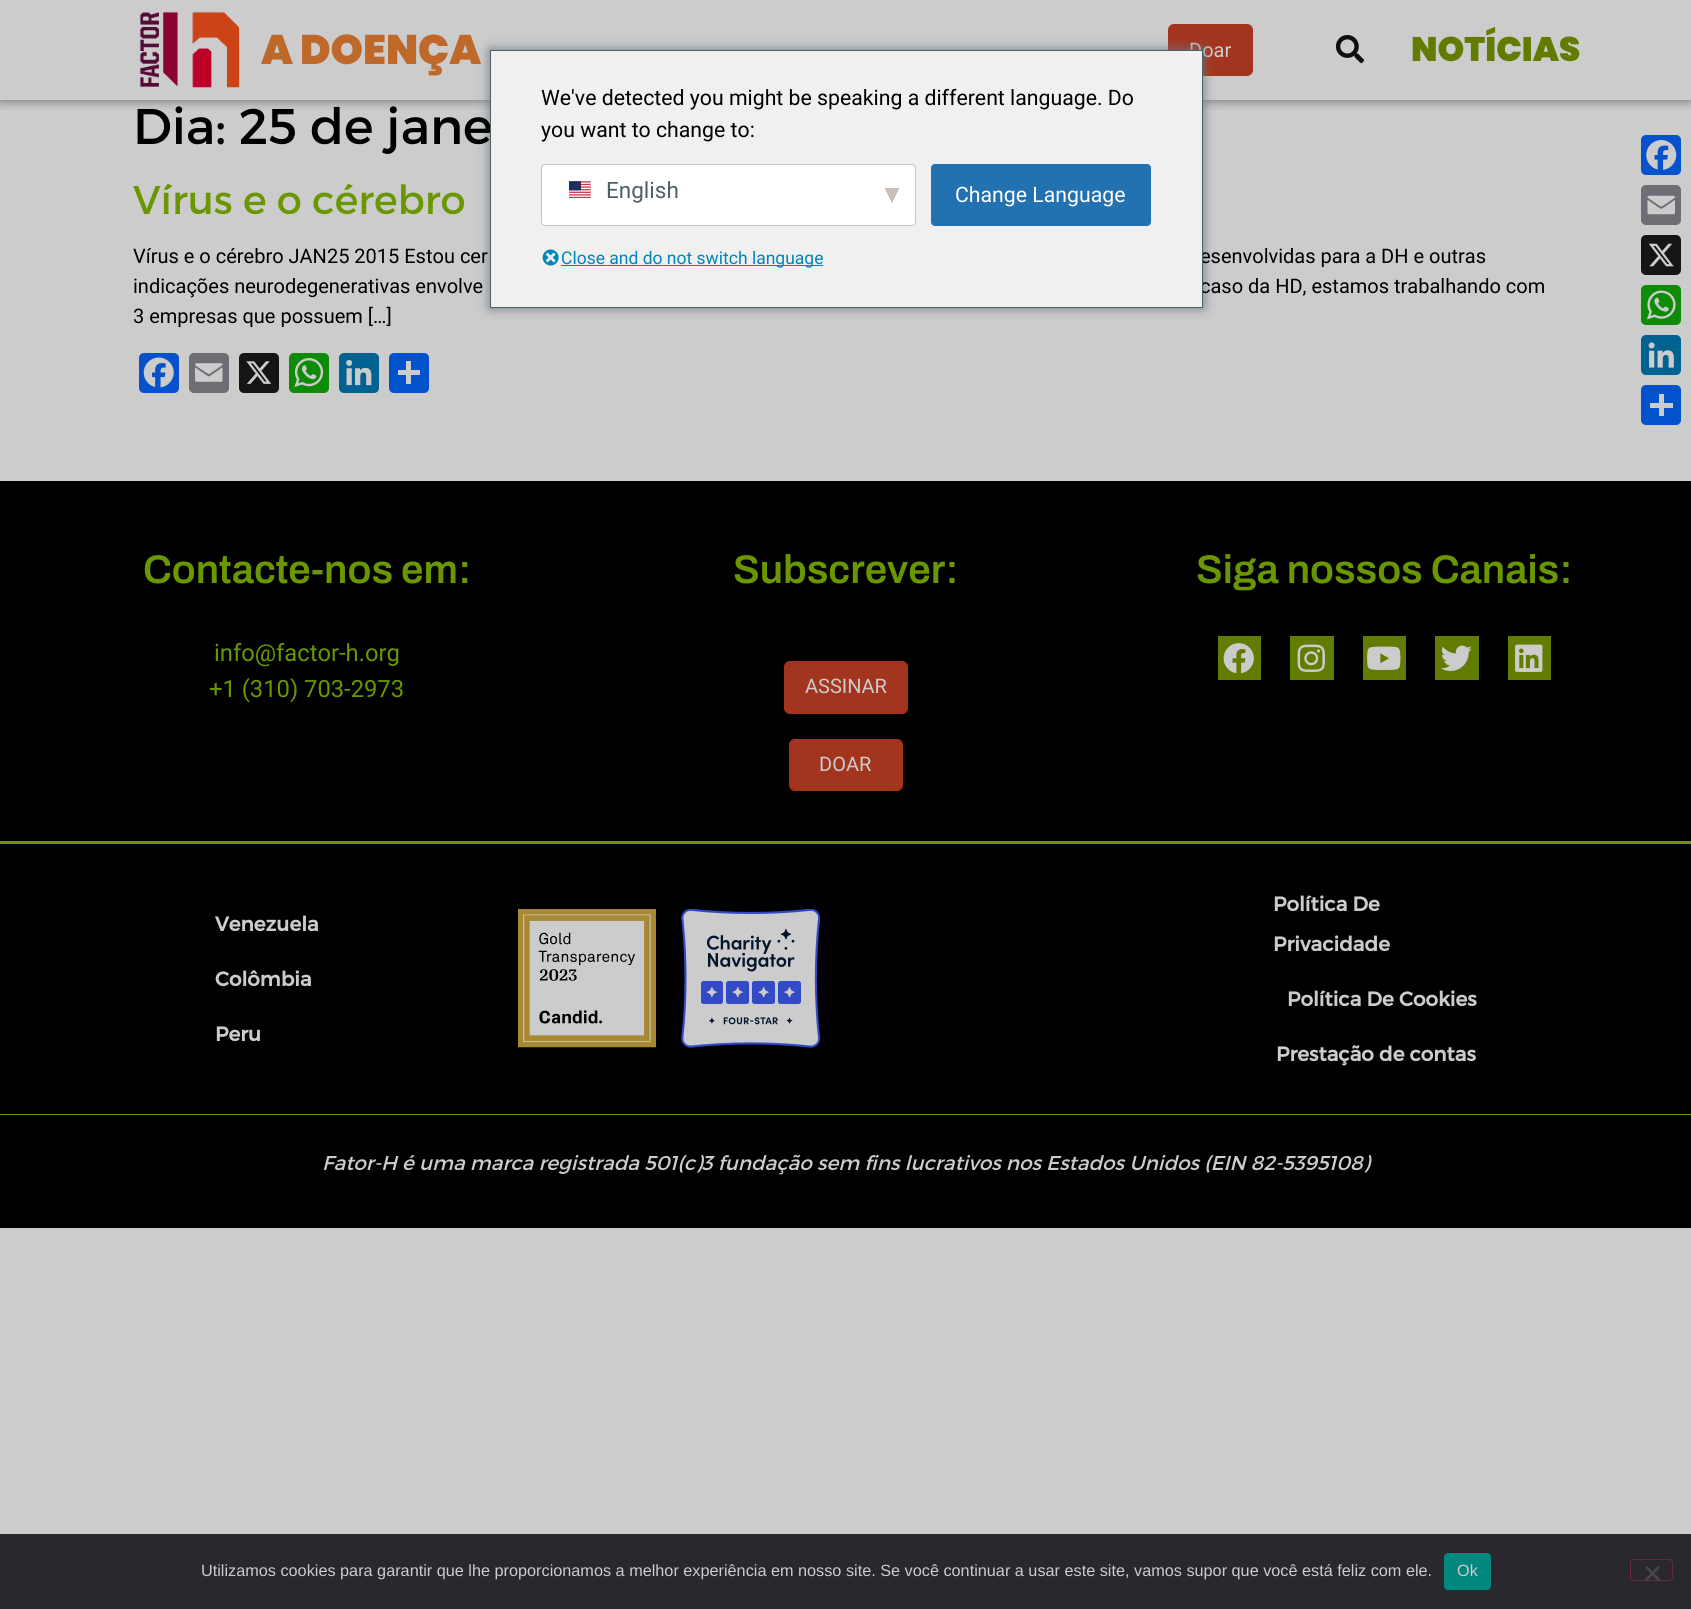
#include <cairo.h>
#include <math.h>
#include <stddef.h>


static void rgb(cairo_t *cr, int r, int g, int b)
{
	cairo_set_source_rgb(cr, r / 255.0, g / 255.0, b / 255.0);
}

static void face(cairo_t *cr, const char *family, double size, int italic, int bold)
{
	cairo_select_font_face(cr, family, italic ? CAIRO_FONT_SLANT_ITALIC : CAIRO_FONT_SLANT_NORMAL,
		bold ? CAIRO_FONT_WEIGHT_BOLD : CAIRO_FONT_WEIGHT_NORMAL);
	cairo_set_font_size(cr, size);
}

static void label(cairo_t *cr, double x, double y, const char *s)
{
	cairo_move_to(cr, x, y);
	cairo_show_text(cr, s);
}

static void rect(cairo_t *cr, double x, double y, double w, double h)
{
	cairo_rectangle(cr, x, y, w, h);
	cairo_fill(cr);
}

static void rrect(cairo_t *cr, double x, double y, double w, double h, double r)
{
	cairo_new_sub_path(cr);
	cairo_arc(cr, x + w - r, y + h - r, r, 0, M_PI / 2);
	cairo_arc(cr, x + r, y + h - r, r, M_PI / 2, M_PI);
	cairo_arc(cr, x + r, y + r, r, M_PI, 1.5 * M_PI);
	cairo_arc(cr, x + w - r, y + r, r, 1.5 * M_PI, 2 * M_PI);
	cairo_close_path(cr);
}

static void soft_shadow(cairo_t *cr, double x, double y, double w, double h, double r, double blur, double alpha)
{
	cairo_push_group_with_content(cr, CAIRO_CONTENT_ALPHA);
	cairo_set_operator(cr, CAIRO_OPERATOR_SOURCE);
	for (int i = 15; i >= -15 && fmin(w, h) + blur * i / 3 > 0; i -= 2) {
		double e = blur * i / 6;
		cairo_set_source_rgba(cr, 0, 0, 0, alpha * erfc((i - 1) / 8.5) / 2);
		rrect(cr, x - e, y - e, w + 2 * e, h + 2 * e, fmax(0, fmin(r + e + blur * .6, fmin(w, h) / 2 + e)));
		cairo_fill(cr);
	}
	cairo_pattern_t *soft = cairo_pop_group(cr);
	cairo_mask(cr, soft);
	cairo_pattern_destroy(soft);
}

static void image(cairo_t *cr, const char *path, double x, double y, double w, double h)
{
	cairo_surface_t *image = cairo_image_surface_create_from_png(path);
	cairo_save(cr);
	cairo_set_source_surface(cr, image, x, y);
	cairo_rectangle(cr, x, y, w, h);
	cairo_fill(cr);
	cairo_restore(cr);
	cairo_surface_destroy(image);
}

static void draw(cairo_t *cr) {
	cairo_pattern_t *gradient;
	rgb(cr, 204, 204, 204);
	cairo_paint(cr);
	cairo_save(cr);
	cairo_rectangle(cr, 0, 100, 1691, 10);
	cairo_clip(cr);
	rgb(cr, 0, 0, 0);
	soft_shadow(cr, 0, 0, 1691, 100, 0, 6, 0.5);
	cairo_restore(cr);
	image(cr, "image0.png", 139, 11, 101, 77);
	face(cr, "Poppins Black", 41.25, 0, 0);
	rgb(cr, 190, 104, 42);
	label(cr, 261, 64, "A DOENÇA");
	rgb(cr, 163, 52, 30);
	rrect(cr, 1168.5, 24.5, 84, 51, 5.5);
	cairo_fill_preserve(cr);
	cairo_set_line_width(cr, 1);
	cairo_stroke(cr);
	face(cr, "Roboto", 20, 0, 0);
	rgb(cr, 204, 204, 204);
	label(cr, 1189, 57, "Doar");
	image(cr, "image1.png", 1335, 35, 30, 29);
	face(cr, "Poppins Black", 34, 0, 0);
	rgb(cr, 98, 123, 1);
	label(cr, 1411, 61, "NOTÍCIAS");
	rgb(cr, 108, 119, 129);
	soft_shadow(cr, 490, 50, 713, 258, 0, 6, 1);
	face(cr, "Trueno", 50, 0, 0);
	rgb(cr, 0, 0, 0);
	label(cr, 133, 144, "Dia: 25 de jane");
	face(cr, "Roboto", 20, 0, 0);
	label(cr, 1200, 263, "esenvolvidas para a DH e outras");
	label(cr, 1200, 293, "caso da HD, estamos trabalhando com");
	rgb(cr, 240, 240, 238);
	cairo_rectangle(cr, 490.5, 50.5, 712, 257);
	cairo_fill_preserve(cr);
	rgb(cr, 76, 96, 102);
	cairo_stroke(cr);
	face(cr, "Roboto", 21.25, 0, 0);
	rgb(cr, 0, 0, 0);
	label(cr, 541, 105, "We've detected you might be speaking a different language. Do");
	label(cr, 541, 137, "you want to change to:");
	rgb(cr, 255, 255, 255);
	rrect(cr, 541, 164, 375, 62, 4);
	cairo_fill(cr);
	gradient = cairo_pattern_create_linear(890, 192, 902, 198);
	cairo_pattern_add_color_stop_rgba(gradient, 0.5, 0.788, 0.753, 0.733, 1);
	cairo_pattern_add_color_stop_rgba(gradient, 0.5, 1, 1, 1, 1);
	cairo_set_source(cr, gradient);
	cairo_pattern_destroy(gradient);
	rect(cr, 893, 188, 6, 15);
	gradient = cairo_pattern_create_linear(882, 198, 894, 192);
	cairo_pattern_add_color_stop_rgba(gradient, 0.5, 1, 1, 1, 1);
	cairo_pattern_add_color_stop_rgba(gradient, 0.5, 0.788, 0.753, 0.733, 1);
	cairo_set_source(cr, gradient);
	cairo_pattern_destroy(gradient);
	rect(cr, 885, 188, 8, 15);
	rrect(cr, 541.5, 164.5, 374, 61, 3.5);
	rgb(cr, 193, 193, 193);
	cairo_stroke(cr);
	image(cr, "image2.png", 569, 181, 22, 17);
	face(cr, "Roboto", 22.5, 0, 0);
	rgb(cr, 76, 96, 102);
	label(cr, 606, 198, "English");
	rgb(cr, 34, 113, 177);
	rrect(cr, 931.5, 164.5, 219, 61, 3.5);
	cairo_fill_preserve(cr);
	cairo_stroke(cr);
	face(cr, "Roboto", 21.25, 0, 0);
	rgb(cr, 255, 255, 255);
	label(cr, 955, 202, "Change Language");
	image(cr, "image3.png", 542, 249, 17, 17);
	rgb(cr, 0, 133, 186);
	rect(cr, 561, 265, 262, 1);
	face(cr, "Roboto", 17.5, 0, 0);
	label(cr, 561, 264, "Close and do not switch language");
	face(cr, "Trueno", 40, 0, 0);
	rgb(cr, 106, 151, 0);
	label(cr, 133, 214, "Vírus e o cérebro");
	face(cr, "Roboto", 20, 0, 0);
	rgb(cr, 0, 0, 0);
	label(cr, 133, 263, "Vírus e o cérebro JAN25 2015 Estou cer");
	label(cr, 133, 293, "indicações neurodegenerativas envolve");
	label(cr, 133, 323, "3 empresas que possuem […]");
	rgb(cr, 6, 82, 204);
	rrect(cr, 139, 353, 40, 40, 5);
	cairo_fill(cr);
	image(cr, "image4.png", 143, 357, 31, 31);
	rgb(cr, 109, 110, 115);
	rrect(cr, 189, 353, 40, 40, 5);
	cairo_fill(cr);
	image(cr, "image5.png", 195, 363, 28, 19);
	rgb(cr, 21, 21, 21);
	rrect(cr, 239, 353, 40, 40, 5);
	cairo_fill(cr);
	image(cr, "image6.png", 246, 361, 26, 23);
	rgb(cr, 14, 140, 8);
	rrect(cr, 289, 353, 40, 40, 5);
	cairo_fill(cr);
	image(cr, "image7.png", 294, 358, 30, 29);
	rgb(cr, 0, 98, 145);
	rrect(cr, 339, 353, 40, 40, 5);
	cairo_fill(cr);
	image(cr, "image8.png", 346, 359, 26, 27);
	rgb(cr, 1, 82, 204);
	rrect(cr, 389, 353, 40, 40, 5);
	cairo_fill(cr);
	rgb(cr, 204, 204, 204);
	rect(cr, 406, 361, 5, 23);
	rect(cr, 398, 370, 22, 5);
	rgb(cr, 6, 82, 204);
	rrect(cr, 1641, 135, 40, 40, 5);
	cairo_fill(cr);
	image(cr, "image9.png", 1646, 140, 31, 30);
	rgb(cr, 109, 110, 115);
	rrect(cr, 1641, 185, 40, 40, 5);
	cairo_fill(cr);
	image(cr, "image10.png", 1647, 195, 28, 20);
	rgb(cr, 21, 21, 21);
	rrect(cr, 1641, 235, 40, 40, 5);
	cairo_fill(cr);
	image(cr, "image11.png", 1648, 243, 26, 24);
	rgb(cr, 14, 140, 8);
	rrect(cr, 1641, 285, 40, 40, 5);
	cairo_fill(cr);
	image(cr, "image12.png", 1647, 290, 29, 30);
	rgb(cr, 0, 98, 145);
	rrect(cr, 1641, 335, 40, 40, 5);
	cairo_fill(cr);
	image(cr, "image13.png", 1648, 342, 26, 26);
	rgb(cr, 1, 82, 204);
	rrect(cr, 1641, 385, 40, 40, 5);
	cairo_fill(cr);
	rgb(cr, 204, 204, 204);
	rect(cr, 1659, 394, 5, 22);
	rect(cr, 1650, 403, 23, 5);
	rgb(cr, 0, 0, 0);
	rect(cr, 0, 481, 1691, 360);
	rgb(cr, 106, 151, 0);
	rect(cr, 0, 841, 1691, 3);
	face(cr, "Archivo SemiBold", 40, 0, 0);
	label(cr, 143, 583, "Contacte-nos em:");
	face(cr, "Roboto", 23.75, 0, 0);
	label(cr, 214, 661, "info@factor-h.org");
	label(cr, 209, 697, "+1 (310) 703-2973");
	face(cr, "Archivo SemiBold", 40, 0, 0);
	label(cr, 733, 583, "Subscrever:");
	rgb(cr, 163, 52, 30);
	rrect(cr, 784.5, 661.5, 123, 52, 5.5);
	cairo_fill_preserve(cr);
	cairo_stroke(cr);
	face(cr, "Roboto", 20, 0, 0);
	rgb(cr, 204, 204, 204);
	label(cr, 805, 693, "ASSINAR");
	rgb(cr, 163, 52, 30);
	rrect(cr, 789.5, 739.5, 113, 51, 5.5);
	cairo_fill_preserve(cr);
	cairo_stroke(cr);
	rgb(cr, 204, 204, 204);
	label(cr, 819, 771, "DOAR");
	face(cr, "Archivo SemiBold", 40, 0, 0);
	rgb(cr, 106, 151, 0);
	label(cr, 1196, 583, "Siga nossos Canais:");
	rgb(cr, 98, 123, 1);
	rect(cr, 1218, 636, 43, 44);
	image(cr, "image14.png", 1223, 643, 31, 31);
	rect(cr, 1290, 636, 44, 44);
	image(cr, "image15.png", 1297, 644, 28, 28);
	rect(cr, 1363, 636, 43, 44);
	image(cr, "image16.png", 1367, 646, 34, 24);
	rect(cr, 1435, 636, 44, 44);
	image(cr, "image17.png", 1440, 645, 32, 26);
	rect(cr, 1508, 636, 43, 44);
	image(cr, "image18.png", 1515, 644, 28, 28);
	rgb(cr, 0, 0, 0);
	rect(cr, 0, 844, 1691, 270);
	rgb(cr, 106, 151, 0);
	rect(cr, 0, 1114, 1691, 1);
	face(cr, "Trueno", 20, 0, 1);
	rgb(cr, 204, 204, 204);
	label(cr, 215, 931, "Venezuela");
	label(cr, 215, 986, "Colômbia");
	label(cr, 215, 1041, "Peru");
	image(cr, "image19.png", 518, 909, 138, 139);
	image(cr, "image20.png", 681, 909, 140, 139);
	label(cr, 1273, 911, "Política De");
	label(cr, 1273, 951, "Privacidade");
	label(cr, 1287, 1006, "Política De Cookies");
	label(cr, 1276, 1061, "Prestação de contas");
	rgb(cr, 0, 0, 0);
	rect(cr, 0, 1115, 1691, 113);
	face(cr, "Trueno", 20, 1, 0);
	rgb(cr, 204, 204, 204);
	label(cr, 322, 1170, "Fator-H é uma marca registrada 501(c)3 fundação sem fins lucrativos nos Estados Unidos (EIN 82-5395108)");
	rgb(cr, 40, 40, 46);
	rect(cr, 0, 1534, 1691, 75);
	face(cr, "Liberation Sans", 16.25, 0, 0);
	rgb(cr, 204, 204, 204);
	label(cr, 201, 1576, "Utilizamos cookies para garantir que lhe proporcionamos a melhor experiência em nosso site. Se você continuar a usar este site, vamos supor que você está feliz com ele.");
	rgb(cr, 0, 135, 126);
	rrect(cr, 1444, 1553, 47, 37, 4);
	cairo_fill(cr);
	rgb(cr, 204, 204, 204);
	label(cr, 1457, 1576, "Ok");
	rrect(cr, 1630.5, 1559.5, 42, 21, 3.5);
	rgb(cr, 102, 41, 64);
	cairo_stroke(cr);
	rgb(cr, 71, 71, 74);
	cairo_new_path(cr);
	cairo_move_to(cr, 1658, 1566);
	cairo_line_to(cr, 1660, 1567.5);
	cairo_line_to(cr, 1647, 1581);
	cairo_line_to(cr, 1645, 1579);
	cairo_close_path(cr);
	cairo_fill(cr);
	cairo_new_path(cr);
	cairo_move_to(cr, 1645, 1567.5);
	cairo_line_to(cr, 1647, 1566);
	cairo_line_to(cr, 1660, 1579);
	cairo_line_to(cr, 1658, 1581);
	cairo_close_path(cr);
	cairo_fill(cr);
}

int main(void) {
	cairo_surface_t *surface = cairo_image_surface_create(CAIRO_FORMAT_RGB24, 1691, 1609);
	cairo_t *cr = cairo_create(surface);
	cairo_font_options_t *options = cairo_font_options_create();
	cairo_font_options_set_hint_metrics(options, CAIRO_HINT_METRICS_OFF);
	cairo_font_options_set_hint_style(options, CAIRO_HINT_STYLE_NONE);
	cairo_set_font_options(cr, options);
	cairo_set_miter_limit(cr, 4);
	draw(cr);
	cairo_surface_write_to_png(surface, "render.png");
	cairo_font_options_destroy(options);
	cairo_destroy(cr);
	cairo_surface_destroy(surface);
	return 0;
}
